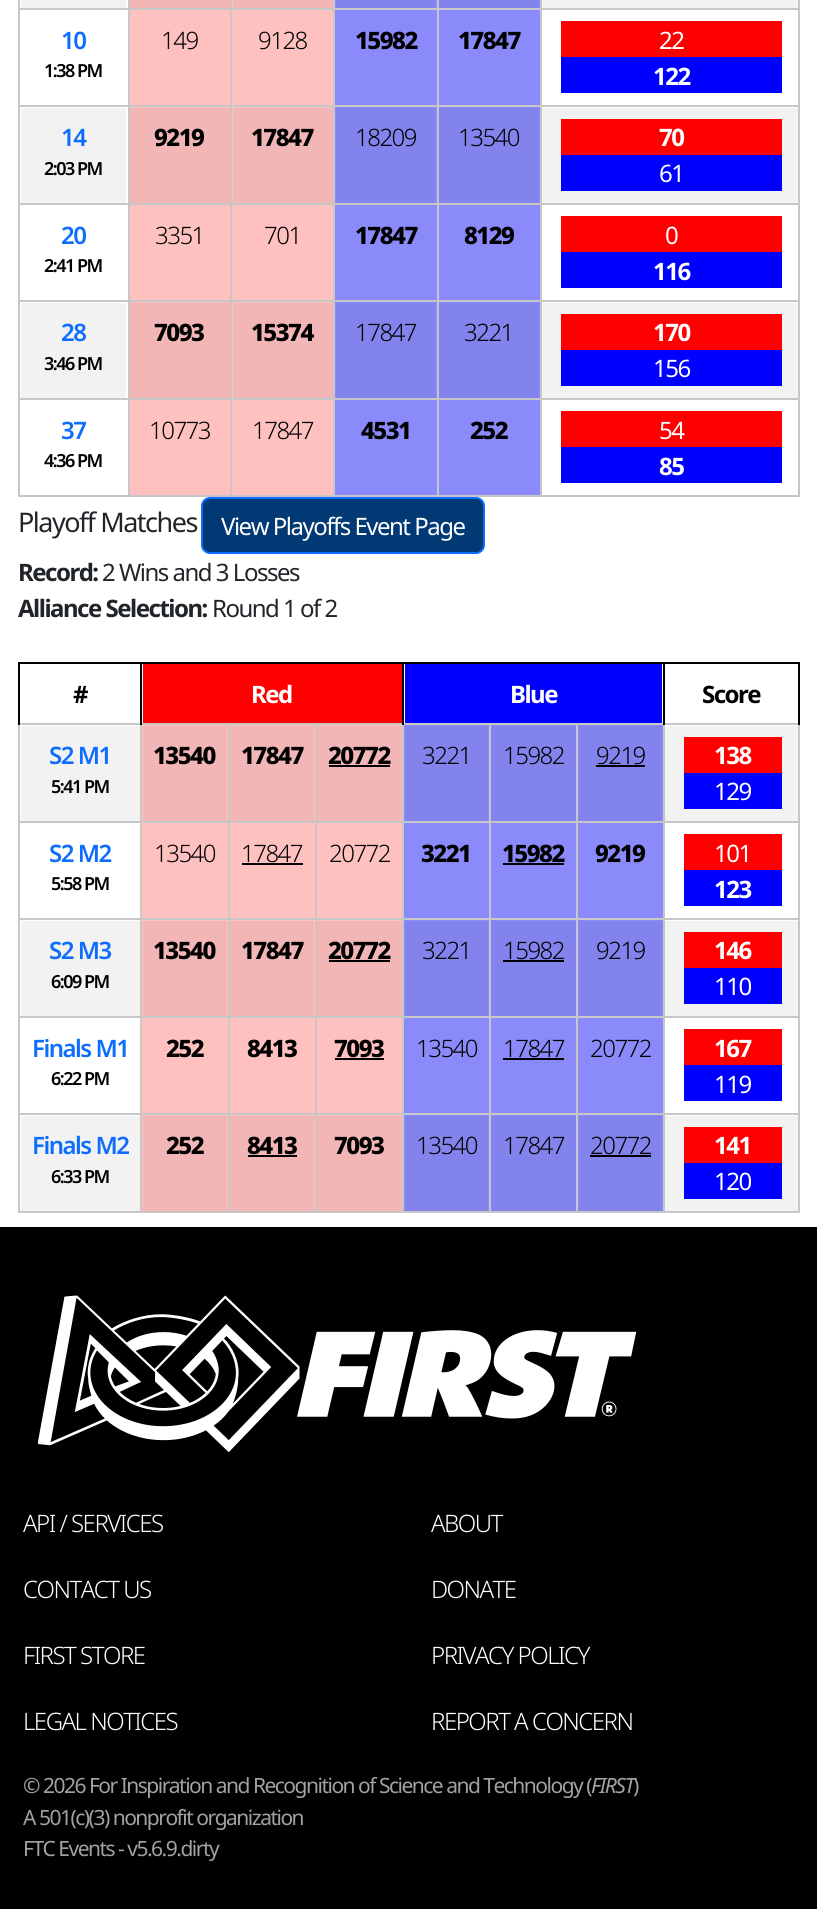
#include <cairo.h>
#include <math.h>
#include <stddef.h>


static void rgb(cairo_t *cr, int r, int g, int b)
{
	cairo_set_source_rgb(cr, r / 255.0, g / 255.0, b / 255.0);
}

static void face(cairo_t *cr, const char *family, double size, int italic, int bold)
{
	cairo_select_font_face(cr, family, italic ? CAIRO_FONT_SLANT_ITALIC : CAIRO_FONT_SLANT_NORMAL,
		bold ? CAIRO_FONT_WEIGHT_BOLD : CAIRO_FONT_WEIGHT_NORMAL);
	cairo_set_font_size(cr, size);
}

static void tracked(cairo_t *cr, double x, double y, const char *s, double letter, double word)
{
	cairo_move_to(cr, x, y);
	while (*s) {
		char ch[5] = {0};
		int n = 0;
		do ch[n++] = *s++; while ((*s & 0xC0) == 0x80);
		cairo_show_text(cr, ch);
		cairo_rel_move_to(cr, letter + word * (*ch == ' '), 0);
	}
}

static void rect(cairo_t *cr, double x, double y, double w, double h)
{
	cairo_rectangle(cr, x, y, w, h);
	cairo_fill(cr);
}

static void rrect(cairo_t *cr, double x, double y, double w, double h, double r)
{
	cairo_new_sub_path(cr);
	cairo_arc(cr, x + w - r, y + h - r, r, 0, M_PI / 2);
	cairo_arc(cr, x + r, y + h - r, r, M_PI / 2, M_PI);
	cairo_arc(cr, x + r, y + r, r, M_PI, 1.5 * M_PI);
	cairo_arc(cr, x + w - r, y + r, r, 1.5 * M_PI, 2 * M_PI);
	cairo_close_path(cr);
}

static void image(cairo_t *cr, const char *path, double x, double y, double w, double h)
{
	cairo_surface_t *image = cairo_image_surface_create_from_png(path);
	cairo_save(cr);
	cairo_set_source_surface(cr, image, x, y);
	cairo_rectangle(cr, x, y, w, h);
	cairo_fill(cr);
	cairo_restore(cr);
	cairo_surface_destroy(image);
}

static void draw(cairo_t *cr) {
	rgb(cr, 255, 255, 255);
	cairo_paint(cr);
	rgb(cr, 242, 242, 242);
	rect(cr, 21, 0, 105, 8);
	rgb(cr, 242, 182, 182);
	rect(cr, 129, 0, 101, 8);
	rgb(cr, 199, 199, 199);
	rect(cr, 540, 8, 260, 2);
	rect(cr, 540, 105, 260, 2);
	rect(cr, 540, 203, 260, 2);
	rect(cr, 540, 300, 260, 2);
	rect(cr, 540, 398, 260, 2);
	rect(cr, 798, 398, 2, 99);
	rect(cr, 540, 495, 260, 2);
	rect(cr, 540, 398, 2, 99);
	rect(cr, 437, 398, 105, 2);
	rect(cr, 540, 300, 2, 99);
	rect(cr, 437, 300, 105, 2);
	rect(cr, 540, 203, 2, 99);
	rect(cr, 437, 203, 105, 2);
	rect(cr, 540, 105, 2, 99);
	rect(cr, 437, 105, 105, 2);
	rect(cr, 540, 8, 2, 99);
	rect(cr, 437, 8, 105, 2);
	rect(cr, 437, 495, 105, 2);
	rect(cr, 437, 398, 2, 99);
	rect(cr, 333, 398, 105, 2);
	rect(cr, 437, 300, 2, 99);
	rect(cr, 333, 300, 105, 2);
	rect(cr, 437, 203, 2, 99);
	rect(cr, 333, 203, 105, 2);
	rect(cr, 437, 105, 2, 99);
	rect(cr, 333, 105, 105, 2);
	rect(cr, 437, 8, 2, 99);
	rect(cr, 333, 8, 105, 2);
	rect(cr, 333, 495, 105, 2);
	rect(cr, 333, 398, 2, 99);
	rect(cr, 230, 398, 105, 2);
	rect(cr, 333, 300, 2, 99);
	rect(cr, 230, 300, 105, 2);
	rect(cr, 333, 203, 2, 99);
	rect(cr, 230, 203, 105, 2);
	rect(cr, 333, 105, 2, 99);
	rect(cr, 230, 105, 105, 2);
	rect(cr, 333, 8, 2, 99);
	rect(cr, 230, 8, 105, 2);
	rect(cr, 230, 495, 105, 2);
	rect(cr, 230, 398, 2, 99);
	rect(cr, 128, 398, 103, 2);
	rect(cr, 230, 300, 2, 99);
	rect(cr, 128, 300, 103, 2);
	rect(cr, 230, 203, 2, 99);
	rect(cr, 128, 203, 103, 2);
	rect(cr, 230, 105, 2, 99);
	rect(cr, 128, 105, 103, 2);
	rect(cr, 230, 8, 2, 99);
	rect(cr, 128, 8, 103, 2);
	rect(cr, 128, 495, 103, 2);
	rect(cr, 128, 398, 2, 99);
	rect(cr, 18, 398, 111, 2);
	rect(cr, 128, 300, 2, 99);
	rect(cr, 18, 300, 111, 2);
	rect(cr, 128, 203, 2, 99);
	rect(cr, 18, 203, 111, 2);
	rect(cr, 128, 105, 2, 99);
	rect(cr, 18, 105, 111, 2);
	rect(cr, 128, 8, 2, 99);
	rect(cr, 18, 8, 111, 2);
	rect(cr, 128, 0, 2, 9);
	rgb(cr, 255, 192, 192);
	rect(cr, 232, 0, 1, 8);
	rgb(cr, 242, 182, 182);
	rect(cr, 233, 0, 100, 8);
	rgb(cr, 199, 199, 199);
	rect(cr, 230, 0, 2, 9);
	rgb(cr, 138, 138, 251);
	rect(cr, 335, 0, 102, 8);
	rgb(cr, 131, 131, 238);
	rect(cr, 336, 0, 99, 8);
	rgb(cr, 199, 199, 199);
	rect(cr, 333, 0, 2, 9);
	rgb(cr, 138, 138, 251);
	rect(cr, 539, 0, 1, 8);
	rgb(cr, 131, 131, 238);
	rect(cr, 438, 0, 101, 8);
	rgb(cr, 199, 199, 199);
	rect(cr, 437, 0, 2, 9);
	rgb(cr, 242, 242, 242);
	rect(cr, 542, 0, 256, 8);
	rgb(cr, 199, 199, 199);
	rect(cr, 540, 0, 2, 9);
	rect(cr, 18, 495, 111, 2);
	rect(cr, 18, 398, 2, 99);
	rect(cr, 18, 300, 2, 99);
	rect(cr, 18, 203, 2, 99);
	rect(cr, 18, 105, 2, 99);
	rect(cr, 18, 0, 2, 107);
	face(cr, "Noto Sans SemiBold", 24, 0, 0);
	rgb(cr, 13, 110, 253);
	tracked(cr, 61, 49, "10", -1.5, 0);
	face(cr, "Noto Sans SemiBold", 18, 0, 0);
	rgb(cr, 0, 0, 0);
	tracked(cr, 44, 77, "1:38 PM", -1.5, 0);
	rgb(cr, 255, 192, 192);
	rect(cr, 130, 10, 100, 95);
	face(cr, "Noto Sans Light", 24, 0, 0);
	rgb(cr, 0, 0, 0);
	tracked(cr, 161, 49, "149", -1.5, 0);
	rgb(cr, 255, 192, 192);
	rect(cr, 232, 10, 101, 95);
	rgb(cr, 0, 0, 0);
	tracked(cr, 258, 49, "9128", -1.5, 0);
	rgb(cr, 138, 138, 251);
	rect(cr, 335, 10, 102, 95);
	face(cr, "Noto Sans ExtraBold", 24, 0, 0);
	rgb(cr, 0, 0, 0);
	tracked(cr, 355, 49, "15982", -1.5, 0);
	rgb(cr, 138, 138, 251);
	rect(cr, 439, 10, 101, 95);
	rgb(cr, 0, 0, 0);
	tracked(cr, 458, 49, "17847", -1.5, 0);
	rgb(cr, 199, 199, 199);
	rect(cr, 798, 300, 2, 99);
	rect(cr, 798, 203, 2, 99);
	rect(cr, 798, 105, 2, 99);
	rect(cr, 798, 0, 2, 107);
	rgb(cr, 255, 0, 0);
	rect(cr, 561, 21, 221, 36);
	face(cr, "Noto Sans", 24, 0, 0);
	rgb(cr, 255, 255, 255);
	tracked(cr, 659, 49, "22", -1.5, 0);
	rgb(cr, 0, 0, 255);
	rect(cr, 561, 57, 221, 36);
	face(cr, "Noto Sans", 24, 0, 1);
	rgb(cr, 255, 255, 255);
	tracked(cr, 653, 85, "122", -1.5, 0);
	rgb(cr, 242, 242, 242);
	rect(cr, 21, 108, 105, 95);
	face(cr, "Noto Sans SemiBold", 24, 0, 0);
	rgb(cr, 13, 110, 253);
	tracked(cr, 61, 146, "14", -1.5, 0);
	face(cr, "Noto Sans SemiBold", 18, 0, 0);
	rgb(cr, 0, 0, 0);
	tracked(cr, 44, 175, "2:03 PM", -1.5, 0);
	rgb(cr, 255, 192, 192);
	rect(cr, 130, 107, 100, 1);
	rgb(cr, 242, 182, 182);
	rect(cr, 130, 108, 100, 95);
	face(cr, "Noto Sans ExtraBold", 24, 0, 0);
	rgb(cr, 0, 0, 0);
	tracked(cr, 154, 146, "9219", -1.5, 0);
	rgb(cr, 255, 192, 192);
	rect(cr, 232, 107, 101, 96);
	rgb(cr, 242, 182, 182);
	rect(cr, 233, 108, 100, 95);
	rgb(cr, 0, 0, 0);
	tracked(cr, 251, 146, "17847", -1.5, 0);
	rgb(cr, 138, 138, 251);
	rect(cr, 335, 107, 102, 96);
	rgb(cr, 131, 131, 238);
	rect(cr, 336, 108, 99, 95);
	face(cr, "Noto Sans Light", 24, 0, 0);
	rgb(cr, 0, 0, 0);
	tracked(cr, 355, 146, "18209", -1.5, 0);
	rgb(cr, 138, 138, 251);
	rect(cr, 439, 107, 101, 96);
	rgb(cr, 131, 131, 238);
	rect(cr, 439, 108, 100, 95);
	rgb(cr, 0, 0, 0);
	tracked(cr, 458, 146, "13540", -1.5, 0);
	rgb(cr, 242, 242, 242);
	rect(cr, 542, 108, 256, 95);
	rgb(cr, 255, 0, 0);
	rect(cr, 561, 119, 221, 36);
	face(cr, "Noto Sans", 24, 0, 1);
	rgb(cr, 255, 255, 255);
	tracked(cr, 659, 146, "70", -1.5, 0);
	rgb(cr, 0, 0, 255);
	rect(cr, 561, 155, 221, 36);
	face(cr, "Noto Sans", 24, 0, 0);
	rgb(cr, 255, 255, 255);
	tracked(cr, 659, 182, "61", -1.5, 0);
	face(cr, "Noto Sans SemiBold", 24, 0, 0);
	rgb(cr, 13, 110, 253);
	tracked(cr, 61, 244, "20", -1.5, 0);
	face(cr, "Noto Sans SemiBold", 18, 0, 0);
	rgb(cr, 0, 0, 0);
	tracked(cr, 44, 272, "2:41 PM", -1.5, 0);
	rgb(cr, 255, 192, 192);
	rect(cr, 130, 205, 100, 95);
	face(cr, "Noto Sans Light", 24, 0, 0);
	rgb(cr, 0, 0, 0);
	tracked(cr, 155, 244, "3351", -1.5, 0);
	rgb(cr, 255, 192, 192);
	rect(cr, 232, 205, 101, 95);
	rgb(cr, 0, 0, 0);
	tracked(cr, 264, 244, "701", -1.5, 0);
	rgb(cr, 138, 138, 251);
	rect(cr, 335, 205, 102, 95);
	face(cr, "Noto Sans ExtraBold", 24, 0, 0);
	rgb(cr, 0, 0, 0);
	tracked(cr, 355, 244, "17847", -1.5, 0);
	rgb(cr, 138, 138, 251);
	rect(cr, 439, 205, 101, 95);
	rgb(cr, 0, 0, 0);
	tracked(cr, 464, 244, "8129", -1.5, 0);
	rgb(cr, 255, 0, 0);
	rect(cr, 561, 216, 221, 36);
	face(cr, "Noto Sans", 24, 0, 0);
	rgb(cr, 255, 255, 255);
	tracked(cr, 665, 244, "0", -1.5, 0);
	rgb(cr, 0, 0, 255);
	rect(cr, 561, 252, 221, 36);
	face(cr, "Noto Sans", 24, 0, 1);
	rgb(cr, 255, 255, 255);
	tracked(cr, 653, 280, "116", -1.5, 0);
	rgb(cr, 242, 242, 242);
	rect(cr, 21, 303, 105, 95);
	face(cr, "Noto Sans SemiBold", 24, 0, 0);
	rgb(cr, 13, 110, 253);
	tracked(cr, 61, 341, "28", -1.5, 0);
	face(cr, "Noto Sans SemiBold", 18, 0, 0);
	rgb(cr, 0, 0, 0);
	tracked(cr, 44, 370, "3:46 PM", -1.5, 0);
	rgb(cr, 255, 192, 192);
	rect(cr, 130, 302, 100, 1);
	rgb(cr, 242, 182, 182);
	rect(cr, 130, 303, 100, 95);
	face(cr, "Noto Sans ExtraBold", 24, 0, 0);
	rgb(cr, 0, 0, 0);
	tracked(cr, 154, 341, "7093", -1.5, 0);
	rgb(cr, 255, 192, 192);
	rect(cr, 232, 302, 101, 96);
	rgb(cr, 242, 182, 182);
	rect(cr, 233, 303, 100, 95);
	rgb(cr, 0, 0, 0);
	tracked(cr, 251, 341, "15374", -1.5, 0);
	rgb(cr, 138, 138, 251);
	rect(cr, 335, 302, 102, 96);
	rgb(cr, 131, 131, 238);
	rect(cr, 336, 303, 99, 95);
	face(cr, "Noto Sans Light", 24, 0, 0);
	rgb(cr, 0, 0, 0);
	tracked(cr, 355, 341, "17847", -1.5, 0);
	rgb(cr, 138, 138, 251);
	rect(cr, 439, 302, 101, 96);
	rgb(cr, 131, 131, 238);
	rect(cr, 439, 303, 100, 95);
	rgb(cr, 0, 0, 0);
	tracked(cr, 464, 341, "3221", -1.5, 0);
	rgb(cr, 242, 242, 242);
	rect(cr, 542, 303, 256, 95);
	rgb(cr, 255, 0, 0);
	rect(cr, 561, 314, 221, 36);
	face(cr, "Noto Sans", 24, 0, 1);
	rgb(cr, 255, 255, 255);
	tracked(cr, 653, 341, "170", -1.5, 0);
	rgb(cr, 0, 0, 255);
	rect(cr, 561, 350, 221, 36);
	face(cr, "Noto Sans", 24, 0, 0);
	rgb(cr, 255, 255, 255);
	tracked(cr, 653, 377, "156", -1.5, 0);
	face(cr, "Noto Sans SemiBold", 24, 0, 0);
	rgb(cr, 13, 110, 253);
	tracked(cr, 61, 439, "37", -1.5, 0);
	face(cr, "Noto Sans SemiBold", 18, 0, 0);
	rgb(cr, 0, 0, 0);
	tracked(cr, 44, 467, "4:36 PM", -1.5, 0);
	rgb(cr, 255, 192, 192);
	rect(cr, 130, 400, 100, 95);
	face(cr, "Noto Sans Light", 24, 0, 0);
	rgb(cr, 0, 0, 0);
	tracked(cr, 149, 439, "10773", -1.5, 0);
	rgb(cr, 255, 192, 192);
	rect(cr, 232, 400, 101, 95);
	rgb(cr, 0, 0, 0);
	tracked(cr, 252, 439, "17847", -1.5, 0);
	rgb(cr, 138, 138, 251);
	rect(cr, 335, 400, 102, 95);
	face(cr, "Noto Sans ExtraBold", 24, 0, 0);
	rgb(cr, 0, 0, 0);
	tracked(cr, 361, 439, "4531", -1.5, 0);
	rgb(cr, 138, 138, 251);
	rect(cr, 439, 400, 101, 95);
	rgb(cr, 0, 0, 0);
	tracked(cr, 470, 439, "252", -1.5, 0);
	rgb(cr, 255, 0, 0);
	rect(cr, 561, 411, 221, 36);
	face(cr, "Noto Sans", 24, 0, 0);
	rgb(cr, 255, 255, 255);
	tracked(cr, 659, 439, "54", -1.5, 0);
	rgb(cr, 0, 0, 255);
	rect(cr, 561, 447, 221, 36);
	face(cr, "Noto Sans", 24, 0, 1);
	rgb(cr, 255, 255, 255);
	tracked(cr, 659, 475, "85", -1.5, 0);
	face(cr, "Noto Sans", 27, 0, 0);
	rgb(cr, 33, 37, 41);
	tracked(cr, 18, 532, "Playoff Matches", -1.5, 0);
	rgb(cr, 0, 57, 116);
	rrect(cr, 202, 498, 282, 55, 8);
	cairo_fill_preserve(cr);
	rgb(cr, 13, 110, 253);
	cairo_stroke(cr);
	face(cr, "Noto Sans", 24, 0, 0);
	rgb(cr, 255, 255, 255);
	tracked(cr, 221, 535, "View Playoffs Event Page", -1.5, 0);
	face(cr, "Noto Sans", 24, 0, 1);
	rgb(cr, 33, 37, 41);
	tracked(cr, 18, 581, "Record:", -1.5, 0);
	face(cr, "Noto Sans", 24, 0, 0);
	tracked(cr, 102, 581, "2 Wins and 3 Losses", -1.5, 0);
	face(cr, "Noto Sans", 24, 0, 1);
	tracked(cr, 18, 617, "Alliance Selection:", -1.5, 0);
	face(cr, "Noto Sans", 24, 0, 0);
	tracked(cr, 212, 617, "Round 1 of 2", -1.5, 0);
	rgb(cr, 0, 0, 0);
	rect(cr, 18, 662, 782, 2);
	rgb(cr, 199, 199, 199);
	rect(cr, 663, 723, 137, 2);
	rect(cr, 663, 821, 137, 2);
	rect(cr, 663, 918, 137, 2);
	rect(cr, 663, 1016, 137, 2);
	rect(cr, 663, 1113, 137, 2);
	rect(cr, 798, 1113, 2, 99);
	rect(cr, 663, 1211, 137, 2);
	rect(cr, 663, 1113, 2, 99);
	rect(cr, 576, 1113, 89, 2);
	rect(cr, 663, 1016, 2, 99);
	rect(cr, 576, 1016, 89, 2);
	rect(cr, 663, 918, 2, 99);
	rect(cr, 576, 918, 89, 2);
	rect(cr, 663, 821, 2, 99);
	rect(cr, 576, 821, 89, 2);
	rect(cr, 663, 723, 2, 99);
	rect(cr, 576, 723, 89, 2);
	rect(cr, 576, 1211, 89, 2);
	rect(cr, 576, 1113, 2, 99);
	rect(cr, 489, 1113, 89, 2);
	rect(cr, 576, 1016, 2, 99);
	rect(cr, 489, 1016, 89, 2);
	rect(cr, 576, 918, 2, 99);
	rect(cr, 489, 918, 89, 2);
	rect(cr, 576, 821, 2, 99);
	rect(cr, 489, 821, 89, 2);
	rect(cr, 576, 723, 2, 99);
	rect(cr, 489, 723, 89, 2);
	rect(cr, 489, 1211, 89, 2);
	rect(cr, 489, 1113, 2, 99);
	rect(cr, 402, 1113, 89, 2);
	rect(cr, 489, 1016, 2, 99);
	rect(cr, 402, 1016, 89, 2);
	rect(cr, 489, 918, 2, 99);
	rect(cr, 402, 918, 89, 2);
	rect(cr, 489, 821, 2, 99);
	rect(cr, 402, 821, 89, 2);
	rect(cr, 489, 723, 2, 99);
	rect(cr, 402, 723, 89, 2);
	rect(cr, 402, 1211, 89, 2);
	rect(cr, 402, 1113, 2, 99);
	rect(cr, 315, 1113, 89, 2);
	rect(cr, 402, 1016, 2, 99);
	rect(cr, 315, 1016, 89, 2);
	rect(cr, 402, 918, 2, 99);
	rect(cr, 315, 918, 89, 2);
	rect(cr, 402, 821, 2, 99);
	rect(cr, 315, 821, 89, 2);
	rect(cr, 402, 723, 2, 99);
	rect(cr, 315, 723, 89, 2);
	rect(cr, 315, 1211, 89, 2);
	rect(cr, 315, 1113, 2, 99);
	rect(cr, 228, 1113, 89, 2);
	rect(cr, 315, 1016, 2, 99);
	rect(cr, 228, 1016, 89, 2);
	rect(cr, 315, 918, 2, 99);
	rect(cr, 228, 918, 89, 2);
	rect(cr, 315, 821, 2, 99);
	rect(cr, 228, 821, 89, 2);
	rect(cr, 315, 723, 2, 99);
	rect(cr, 228, 723, 89, 2);
	rect(cr, 228, 1211, 89, 2);
	rect(cr, 228, 1113, 2, 99);
	rect(cr, 140, 1113, 90, 2);
	rect(cr, 228, 1016, 2, 99);
	rect(cr, 140, 1016, 90, 2);
	rect(cr, 228, 918, 2, 99);
	rect(cr, 140, 918, 90, 2);
	rect(cr, 228, 821, 2, 99);
	rect(cr, 140, 821, 90, 2);
	rect(cr, 228, 723, 2, 99);
	rect(cr, 140, 723, 90, 2);
	rect(cr, 140, 1211, 90, 2);
	rect(cr, 140, 1113, 2, 99);
	rect(cr, 18, 1113, 123, 2);
	rect(cr, 140, 1016, 2, 99);
	rect(cr, 18, 1016, 123, 2);
	rect(cr, 140, 918, 2, 99);
	rect(cr, 18, 918, 123, 2);
	rect(cr, 140, 821, 2, 99);
	rect(cr, 18, 821, 123, 2);
	rect(cr, 140, 723, 2, 99);
	rect(cr, 18, 723, 123, 2);
	rect(cr, 18, 1211, 123, 2);
	rect(cr, 18, 1113, 2, 99);
	rect(cr, 18, 1016, 2, 99);
	rect(cr, 18, 918, 2, 99);
	rect(cr, 18, 821, 2, 99);
	rect(cr, 18, 723, 2, 99);
	rgb(cr, 0, 0, 0);
	rect(cr, 18, 662, 2, 63);
	face(cr, "Noto Sans", 24, 0, 1);
	tracked(cr, 73, 703, "#", -1.5, 0);
	rgb(cr, 255, 0, 0);
	rect(cr, 143, 664, 259, 59);
	rgb(cr, 0, 0, 0);
	rect(cr, 140, 662, 2, 63);
	rgb(cr, 255, 255, 255);
	tracked(cr, 251, 703, "Red", -1.5, 0);
	rgb(cr, 0, 0, 255);
	rect(cr, 405, 664, 257, 59);
	rgb(cr, 0, 0, 0);
	rect(cr, 402, 662, 2, 63);
	rgb(cr, 255, 255, 255);
	tracked(cr, 510, 703, "Blue", -1.5, 0);
	rgb(cr, 199, 199, 199);
	rect(cr, 798, 1016, 2, 99);
	rect(cr, 798, 918, 2, 99);
	rect(cr, 798, 821, 2, 99);
	rect(cr, 798, 723, 2, 99);
	rgb(cr, 0, 0, 0);
	rect(cr, 798, 662, 2, 63);
	rect(cr, 663, 662, 2, 63);
	tracked(cr, 702, 703, "Score", -1.5, 0);
	rgb(cr, 242, 242, 242);
	rect(cr, 21, 726, 119, 95);
	face(cr, "Noto Sans SemiBold", 24, 0, 0);
	rgb(cr, 13, 110, 253);
	tracked(cr, 49, 764, "S2 M1", -1.5, 0);
	face(cr, "Noto Sans SemiBold", 18, 0, 0);
	rgb(cr, 0, 0, 0);
	tracked(cr, 51, 793, "5:41 PM", -1.5, 0);
	rgb(cr, 255, 192, 192);
	rect(cr, 142, 725, 86, 96);
	rgb(cr, 242, 182, 182);
	rect(cr, 143, 726, 84, 95);
	face(cr, "Noto Sans ExtraBold", 24, 0, 0);
	rgb(cr, 0, 0, 0);
	tracked(cr, 153, 764, "13540", -1.5, 0);
	rgb(cr, 255, 192, 192);
	rect(cr, 230, 725, 85, 96);
	rgb(cr, 242, 182, 182);
	rect(cr, 230, 726, 84, 95);
	rgb(cr, 0, 0, 0);
	tracked(cr, 241, 764, "17847", -1.5, 0);
	rgb(cr, 255, 192, 192);
	rect(cr, 317, 725, 85, 1);
	rgb(cr, 242, 182, 182);
	rect(cr, 317, 726, 85, 95);
	rgb(cr, 0, 0, 0);
	tracked(cr, 328, 764, "20772", -1.5, 0);
	rect(cr, 329, 765, 61, 2);
	rgb(cr, 138, 138, 251);
	rect(cr, 404, 725, 85, 96);
	rgb(cr, 131, 131, 238);
	rect(cr, 405, 726, 83, 95);
	face(cr, "Noto Sans Light", 24, 0, 0);
	rgb(cr, 0, 0, 0);
	tracked(cr, 422, 764, "3221", -1.5, 0);
	rgb(cr, 138, 138, 251);
	rect(cr, 491, 725, 85, 1);
	rgb(cr, 131, 131, 238);
	rect(cr, 491, 726, 85, 95);
	rgb(cr, 0, 0, 0);
	tracked(cr, 503, 764, "15982", -1.5, 0);
	rgb(cr, 138, 138, 251);
	rect(cr, 578, 725, 85, 96);
	rgb(cr, 131, 131, 238);
	rect(cr, 579, 726, 83, 95);
	rgb(cr, 0, 0, 0);
	tracked(cr, 596, 764, "9219", -1.5, 0);
	rect(cr, 596, 765, 49, 2);
	rgb(cr, 242, 242, 242);
	rect(cr, 665, 726, 133, 95);
	rgb(cr, 255, 0, 0);
	rect(cr, 684, 737, 98, 36);
	face(cr, "Noto Sans", 24, 0, 1);
	rgb(cr, 255, 255, 255);
	tracked(cr, 714, 764, "138", -1.5, 0);
	rgb(cr, 0, 0, 255);
	rect(cr, 684, 773, 98, 36);
	face(cr, "Noto Sans", 24, 0, 0);
	rgb(cr, 255, 255, 255);
	tracked(cr, 714, 800, "129", -1.5, 0);
	face(cr, "Noto Sans SemiBold", 24, 0, 0);
	rgb(cr, 13, 110, 253);
	tracked(cr, 49, 862, "S2 M2", -1.5, 0);
	face(cr, "Noto Sans SemiBold", 18, 0, 0);
	rgb(cr, 0, 0, 0);
	tracked(cr, 51, 890, "5:58 PM", -1.5, 0);
	rgb(cr, 255, 192, 192);
	rect(cr, 142, 823, 86, 95);
	face(cr, "Noto Sans Light", 24, 0, 0);
	rgb(cr, 0, 0, 0);
	tracked(cr, 154, 862, "13540", -1.5, 0);
	rgb(cr, 255, 192, 192);
	rect(cr, 230, 823, 85, 95);
	rgb(cr, 0, 0, 0);
	tracked(cr, 241, 862, "17847", -1.5, 0);
	rect(cr, 242, 863, 61, 2);
	rgb(cr, 255, 192, 192);
	rect(cr, 317, 823, 85, 95);
	rgb(cr, 0, 0, 0);
	tracked(cr, 329, 862, "20772", -1.5, 0);
	rgb(cr, 138, 138, 251);
	rect(cr, 404, 823, 85, 95);
	face(cr, "Noto Sans ExtraBold", 24, 0, 0);
	rgb(cr, 0, 0, 0);
	tracked(cr, 421, 862, "3221", -1.5, 0);
	rgb(cr, 138, 138, 251);
	rect(cr, 491, 823, 85, 95);
	rgb(cr, 0, 0, 0);
	tracked(cr, 502, 862, "15982", -1.5, 0);
	rect(cr, 503, 863, 61, 2);
	rgb(cr, 138, 138, 251);
	rect(cr, 578, 823, 85, 95);
	rgb(cr, 0, 0, 0);
	tracked(cr, 595, 862, "9219", -1.5, 0);
	rgb(cr, 255, 0, 0);
	rect(cr, 684, 834, 98, 36);
	face(cr, "Noto Sans", 24, 0, 0);
	rgb(cr, 255, 255, 255);
	tracked(cr, 714, 862, "101", -1.5, 0);
	rgb(cr, 0, 0, 255);
	rect(cr, 684, 870, 98, 36);
	face(cr, "Noto Sans", 24, 0, 1);
	rgb(cr, 255, 255, 255);
	tracked(cr, 714, 898, "123", -1.5, 0);
	rgb(cr, 242, 242, 242);
	rect(cr, 21, 921, 119, 95);
	face(cr, "Noto Sans SemiBold", 24, 0, 0);
	rgb(cr, 13, 110, 253);
	tracked(cr, 49, 959, "S2 M3", -1.5, 0);
	face(cr, "Noto Sans SemiBold", 18, 0, 0);
	rgb(cr, 0, 0, 0);
	tracked(cr, 51, 988, "6:09 PM", -1.5, 0);
	rgb(cr, 255, 192, 192);
	rect(cr, 142, 920, 86, 96);
	rgb(cr, 242, 182, 182);
	rect(cr, 143, 921, 84, 95);
	face(cr, "Noto Sans ExtraBold", 24, 0, 0);
	rgb(cr, 0, 0, 0);
	tracked(cr, 153, 959, "13540", -1.5, 0);
	rgb(cr, 255, 192, 192);
	rect(cr, 230, 920, 85, 96);
	rgb(cr, 242, 182, 182);
	rect(cr, 230, 921, 84, 95);
	rgb(cr, 0, 0, 0);
	tracked(cr, 241, 959, "17847", -1.5, 0);
	rgb(cr, 255, 192, 192);
	rect(cr, 317, 920, 85, 1);
	rgb(cr, 242, 182, 182);
	rect(cr, 317, 921, 85, 95);
	rgb(cr, 0, 0, 0);
	tracked(cr, 328, 959, "20772", -1.5, 0);
	rect(cr, 329, 960, 61, 2);
	rgb(cr, 138, 138, 251);
	rect(cr, 404, 920, 85, 96);
	rgb(cr, 131, 131, 238);
	rect(cr, 405, 921, 83, 95);
	face(cr, "Noto Sans Light", 24, 0, 0);
	rgb(cr, 0, 0, 0);
	tracked(cr, 422, 959, "3221", -1.5, 0);
	rgb(cr, 138, 138, 251);
	rect(cr, 491, 920, 85, 1);
	rgb(cr, 131, 131, 238);
	rect(cr, 491, 921, 85, 95);
	rgb(cr, 0, 0, 0);
	tracked(cr, 503, 959, "15982", -1.5, 0);
	rect(cr, 503, 960, 61, 2);
	rgb(cr, 138, 138, 251);
	rect(cr, 578, 920, 85, 96);
	rgb(cr, 131, 131, 238);
	rect(cr, 579, 921, 83, 95);
	rgb(cr, 0, 0, 0);
	tracked(cr, 596, 959, "9219", -1.5, 0);
	rgb(cr, 242, 242, 242);
	rect(cr, 665, 921, 133, 95);
	rgb(cr, 255, 0, 0);
	rect(cr, 684, 932, 98, 36);
	face(cr, "Noto Sans", 24, 0, 1);
	rgb(cr, 255, 255, 255);
	tracked(cr, 714, 959, "146", -1.5, 0);
	rgb(cr, 0, 0, 255);
	rect(cr, 684, 968, 98, 36);
	face(cr, "Noto Sans", 24, 0, 0);
	rgb(cr, 255, 255, 255);
	tracked(cr, 714, 995, "110", -1.5, 0);
	face(cr, "Noto Sans SemiBold", 24, 0, 0);
	rgb(cr, 13, 110, 253);
	tracked(cr, 32, 1057, "Finals M1", -1.5, 0);
	face(cr, "Noto Sans SemiBold", 18, 0, 0);
	rgb(cr, 0, 0, 0);
	tracked(cr, 51, 1085, "6:22 PM", -1.5, 0);
	rgb(cr, 255, 192, 192);
	rect(cr, 142, 1018, 86, 95);
	face(cr, "Noto Sans ExtraBold", 24, 0, 0);
	rgb(cr, 0, 0, 0);
	tracked(cr, 166, 1057, "252", -1.5, 0);
	rgb(cr, 255, 192, 192);
	rect(cr, 230, 1018, 85, 95);
	rgb(cr, 0, 0, 0);
	tracked(cr, 247, 1057, "8413", -1.5, 0);
	rgb(cr, 255, 192, 192);
	rect(cr, 317, 1018, 85, 95);
	rgb(cr, 0, 0, 0);
	tracked(cr, 334, 1057, "7093", -1.5, 0);
	rect(cr, 335, 1058, 49, 2);
	rgb(cr, 138, 138, 251);
	rect(cr, 404, 1018, 85, 95);
	face(cr, "Noto Sans Light", 24, 0, 0);
	rgb(cr, 0, 0, 0);
	tracked(cr, 416, 1057, "13540", -1.5, 0);
	rgb(cr, 138, 138, 251);
	rect(cr, 491, 1018, 85, 95);
	rgb(cr, 0, 0, 0);
	tracked(cr, 503, 1057, "17847", -1.5, 0);
	rect(cr, 503, 1058, 61, 2);
	rgb(cr, 138, 138, 251);
	rect(cr, 578, 1018, 85, 95);
	rgb(cr, 0, 0, 0);
	tracked(cr, 590, 1057, "20772", -1.5, 0);
	rgb(cr, 255, 0, 0);
	rect(cr, 684, 1029, 98, 36);
	face(cr, "Noto Sans", 24, 0, 1);
	rgb(cr, 255, 255, 255);
	tracked(cr, 714, 1057, "167", -1.5, 0);
	rgb(cr, 0, 0, 255);
	rect(cr, 684, 1065, 98, 36);
	face(cr, "Noto Sans", 24, 0, 0);
	rgb(cr, 255, 255, 255);
	tracked(cr, 714, 1093, "119", -1.5, 0);
	rgb(cr, 242, 242, 242);
	rect(cr, 21, 1116, 119, 95);
	face(cr, "Noto Sans SemiBold", 24, 0, 0);
	rgb(cr, 13, 110, 253);
	tracked(cr, 32, 1154, "Finals M2", -1.5, 0);
	face(cr, "Noto Sans SemiBold", 18, 0, 0);
	rgb(cr, 0, 0, 0);
	tracked(cr, 51, 1183, "6:33 PM", -1.5, 0);
	rgb(cr, 255, 192, 192);
	rect(cr, 142, 1115, 86, 96);
	rgb(cr, 242, 182, 182);
	rect(cr, 143, 1116, 84, 95);
	face(cr, "Noto Sans ExtraBold", 24, 0, 0);
	rgb(cr, 0, 0, 0);
	tracked(cr, 166, 1154, "252", -1.5, 0);
	rgb(cr, 255, 192, 192);
	rect(cr, 230, 1115, 85, 96);
	rgb(cr, 242, 182, 182);
	rect(cr, 230, 1116, 84, 95);
	rgb(cr, 0, 0, 0);
	tracked(cr, 247, 1154, "8413", -1.5, 0);
	rect(cr, 248, 1155, 49, 2);
	rgb(cr, 255, 192, 192);
	rect(cr, 317, 1115, 85, 1);
	rgb(cr, 242, 182, 182);
	rect(cr, 317, 1116, 85, 95);
	rgb(cr, 0, 0, 0);
	tracked(cr, 334, 1154, "7093", -1.5, 0);
	rgb(cr, 138, 138, 251);
	rect(cr, 404, 1115, 85, 96);
	rgb(cr, 131, 131, 238);
	rect(cr, 405, 1116, 83, 95);
	face(cr, "Noto Sans Light", 24, 0, 0);
	rgb(cr, 0, 0, 0);
	tracked(cr, 416, 1154, "13540", -1.5, 0);
	rgb(cr, 138, 138, 251);
	rect(cr, 491, 1115, 85, 1);
	rgb(cr, 131, 131, 238);
	rect(cr, 491, 1116, 85, 95);
	rgb(cr, 0, 0, 0);
	tracked(cr, 503, 1154, "17847", -1.5, 0);
	rgb(cr, 138, 138, 251);
	rect(cr, 578, 1115, 85, 96);
	rgb(cr, 131, 131, 238);
	rect(cr, 579, 1116, 83, 95);
	rgb(cr, 0, 0, 0);
	tracked(cr, 590, 1154, "20772", -1.5, 0);
	rect(cr, 590, 1155, 61, 2);
	rgb(cr, 242, 242, 242);
	rect(cr, 665, 1116, 133, 95);
	rgb(cr, 255, 0, 0);
	rect(cr, 684, 1127, 98, 36);
	face(cr, "Noto Sans", 24, 0, 1);
	rgb(cr, 255, 255, 255);
	tracked(cr, 714, 1154, "141", -1.5, 0);
	rgb(cr, 0, 0, 255);
	rect(cr, 684, 1163, 98, 36);
	face(cr, "Noto Sans", 24, 0, 0);
	rgb(cr, 255, 255, 255);
	tracked(cr, 714, 1190, "120", -1.5, 0);
	rgb(cr, 0, 0, 0);
	rect(cr, 0, 1227, 817, 682);
	image(cr, "image0.png", 38, 1295, 599, 157);
	face(cr, "Noto Sans Light", 24, 0, 0);
	rgb(cr, 255, 255, 255);
	tracked(cr, 23, 1532, "API / SERVICES", -1.5, 0);
	tracked(cr, 431, 1532, "ABOUT", -1.5, 0);
	tracked(cr, 23, 1598, "CONTACT US", -1.5, 0);
	tracked(cr, 431, 1598, "DONATE", -1.5, 0);
	tracked(cr, 23, 1664, "FIRST STORE", -1.5, 0);
	tracked(cr, 431, 1664, "PRIVACY POLICY", -1.5, 0);
	tracked(cr, 23, 1730, "LEGAL NOTICES", -1.5, 0);
	tracked(cr, 431, 1730, "REPORT A CONCERN", -1.5, 0);
	face(cr, "Noto Sans", 21, 0, 0);
	rgb(cr, 162, 162, 162);
	tracked(cr, 23, 1793, "© 2026 For Inspiration and Recognition of Science and Technology (", -1.5, 0);
	face(cr, "Noto Sans", 21, 1, 0);
	tracked(cr, 591, 1793, "FIRST", -1.5, 0);
	face(cr, "Noto Sans", 21, 0, 0);
	tracked(cr, 633, 1793, ")", -1.5, 0);
	tracked(cr, 23, 1825, "A 501(c)(3) nonprofit organization", -1.5, 0);
	tracked(cr, 23, 1856, "FTC Events - v5.6.9.dirty", -1.5, 0);
}

int main(void) {
	cairo_surface_t *surface = cairo_image_surface_create(CAIRO_FORMAT_RGB24, 817, 1909);
	cairo_t *cr = cairo_create(surface);
	cairo_font_options_t *options = cairo_font_options_create();
	cairo_font_options_set_hint_metrics(options, CAIRO_HINT_METRICS_OFF);
	cairo_font_options_set_hint_style(options, CAIRO_HINT_STYLE_NONE);
	cairo_set_font_options(cr, options);
	cairo_set_miter_limit(cr, 4);
	draw(cr);
	cairo_surface_write_to_png(surface, "render.png");
	cairo_font_options_destroy(options);
	cairo_destroy(cr);
	cairo_surface_destroy(surface);
	return 0;
}
